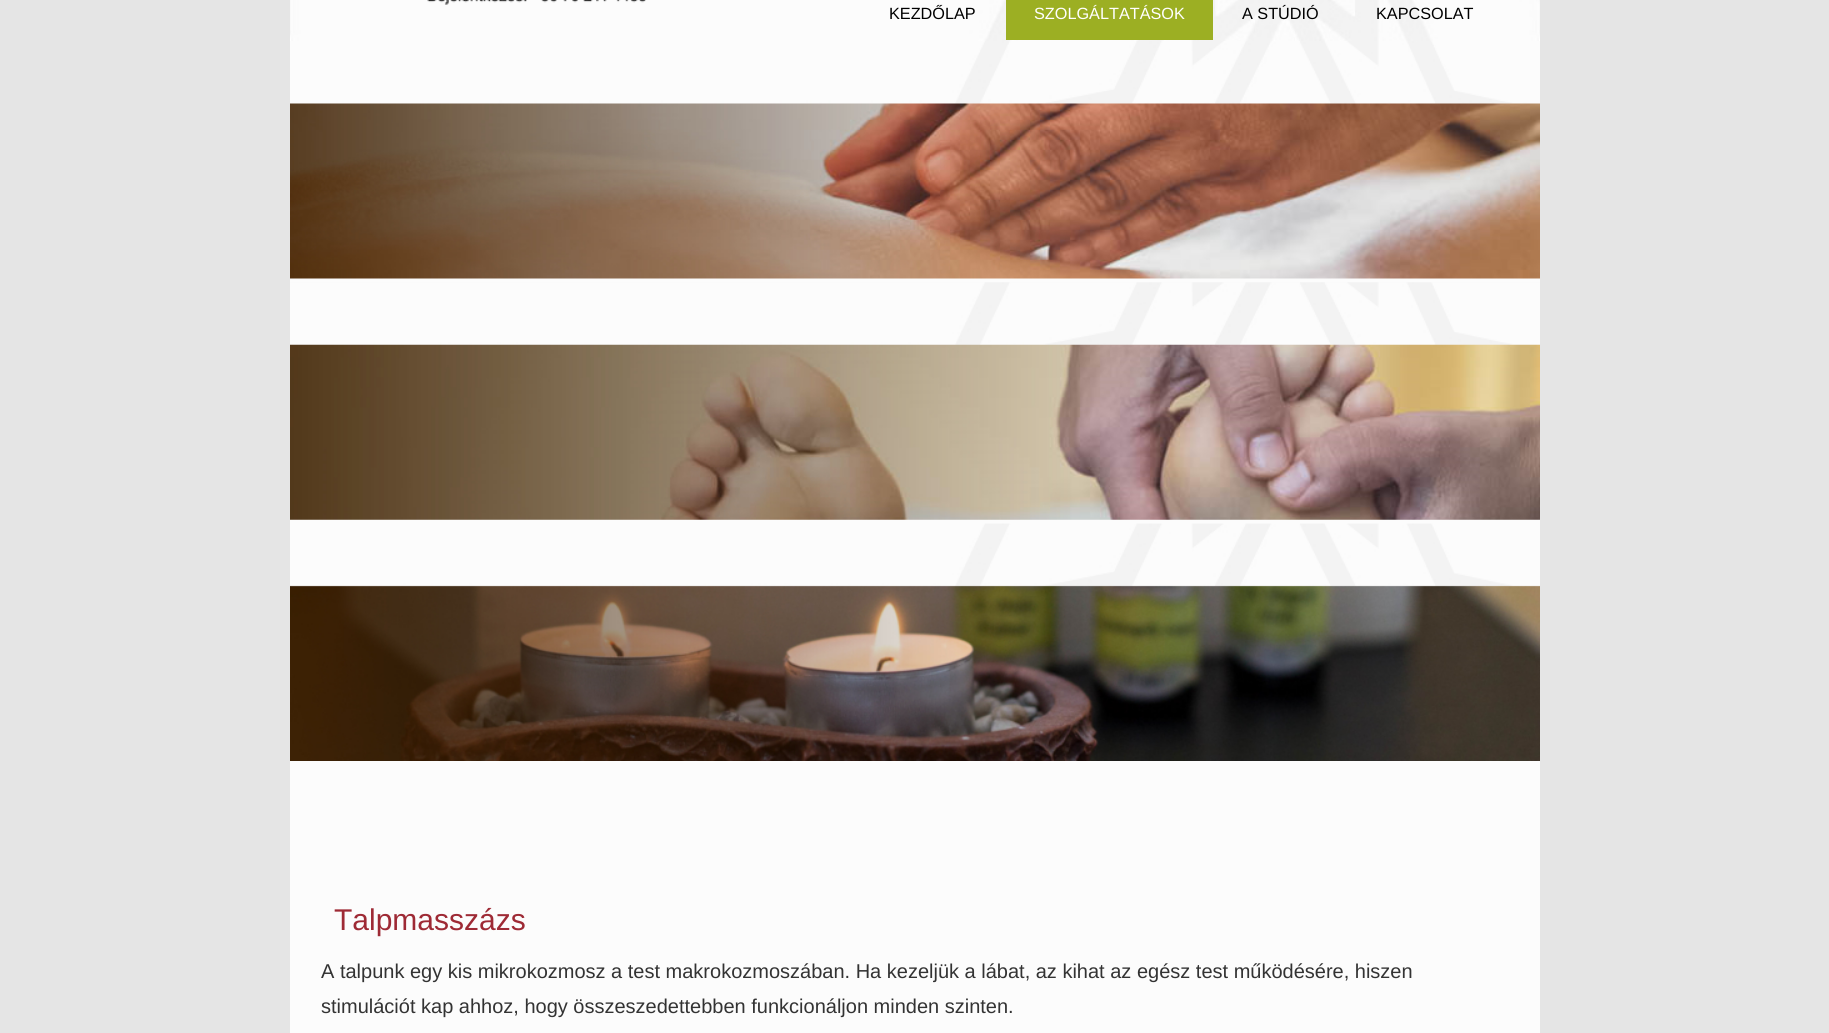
#include <cairo.h>
#include <math.h>
#include <stddef.h>


static void rgb(cairo_t *cr, int r, int g, int b)
{
	cairo_set_source_rgb(cr, r / 255.0, g / 255.0, b / 255.0);
}

static void face(cairo_t *cr, const char *family, double size, int italic, int bold)
{
	cairo_select_font_face(cr, family, italic ? CAIRO_FONT_SLANT_ITALIC : CAIRO_FONT_SLANT_NORMAL,
		bold ? CAIRO_FONT_WEIGHT_BOLD : CAIRO_FONT_WEIGHT_NORMAL);
	cairo_set_font_size(cr, size);
}

static void label(cairo_t *cr, double x, double y, const char *s)
{
	cairo_move_to(cr, x, y);
	cairo_show_text(cr, s);
}

static void rect(cairo_t *cr, double x, double y, double w, double h)
{
	cairo_rectangle(cr, x, y, w, h);
	cairo_fill(cr);
}

static void image(cairo_t *cr, const char *path, double x, double y, double w, double h)
{
	cairo_surface_t *image = cairo_image_surface_create_from_png(path);
	cairo_save(cr);
	cairo_set_source_surface(cr, image, x, y);
	cairo_rectangle(cr, x, y, w, h);
	cairo_fill(cr);
	cairo_restore(cr);
	cairo_surface_destroy(image);
}

static void draw(cairo_t *cr) {
	rgb(cr, 229, 229, 229);
	cairo_paint(cr);
	image(cr, "image0.png", 290, 0, 1250, 41);
	image(cr, "image1.png", 427, 0, 219, 5);
	face(cr, "Liberation Sans", 16.25, 0, 0);
	rgb(cr, 0, 0, 0);
	label(cr, 889, 19, "KEZDŐLAP");
	rgb(cr, 156, 175, 35);
	rect(cr, 1006, 0, 207, 40);
	rgb(cr, 255, 255, 255);
	label(cr, 1034, 19, "SZOLGÁLTATÁSOK");
	rgb(cr, 0, 0, 0);
	label(cr, 1242, 19, "A STÚDIÓ");
	label(cr, 1376, 19, "KAPCSOLAT");
	rgb(cr, 252, 252, 252);
	rect(cr, 290, 278, 1250, 755);
	image(cr, "image2.png", 290, 41, 1250, 238);
	image(cr, "image3.png", 290, 282, 1250, 238);
	image(cr, "image4.png", 290, 523, 1250, 238);
	face(cr, "Liberation Sans", 30, 0, 0);
	rgb(cr, 158, 42, 53);
	label(cr, 334, 930, "Talpmasszázs");
	face(cr, "Liberation Sans", 20, 0, 0);
	rgb(cr, 51, 51, 51);
	label(cr, 321, 978, "A talpunk egy kis mikrokozmosz a test makrokozmoszában. Ha kezeljük a lábat, az kihat az egész test működésére, hiszen");
	label(cr, 321, 1013, "stimulációt kap ahhoz, hogy összeszedettebben funkcionáljon minden szinten.");
}

int main(void) {
	cairo_surface_t *surface = cairo_image_surface_create(CAIRO_FORMAT_RGB24, 1829, 1033);
	cairo_t *cr = cairo_create(surface);
	cairo_font_options_t *options = cairo_font_options_create();
	cairo_font_options_set_hint_metrics(options, CAIRO_HINT_METRICS_OFF);
	cairo_font_options_set_hint_style(options, CAIRO_HINT_STYLE_NONE);
	cairo_set_font_options(cr, options);
	cairo_set_miter_limit(cr, 4);
	draw(cr);
	cairo_surface_write_to_png(surface, "render.png");
	cairo_font_options_destroy(options);
	cairo_destroy(cr);
	cairo_surface_destroy(surface);
	return 0;
}
